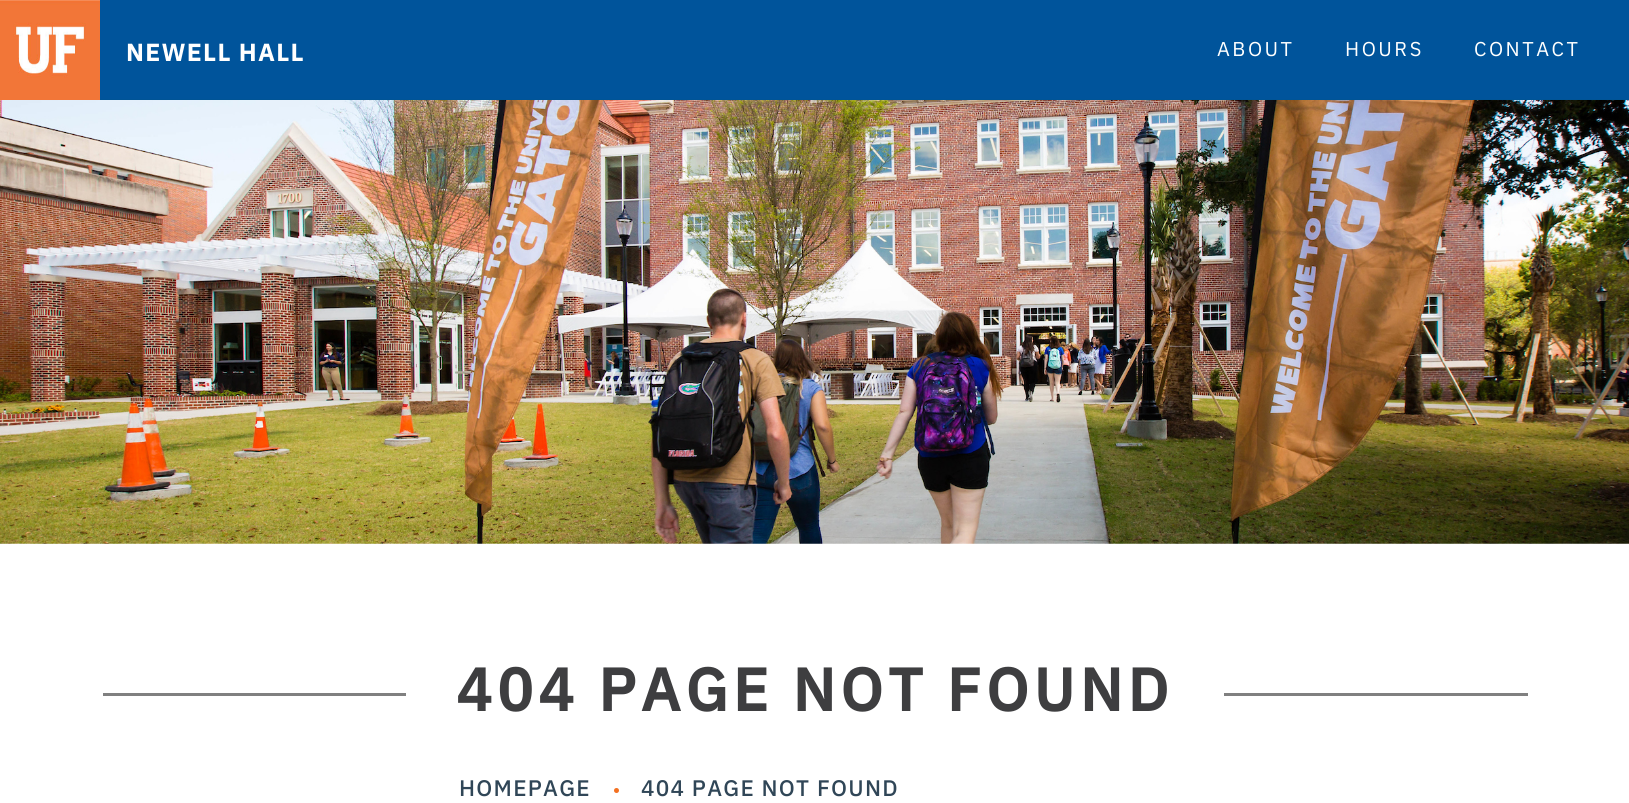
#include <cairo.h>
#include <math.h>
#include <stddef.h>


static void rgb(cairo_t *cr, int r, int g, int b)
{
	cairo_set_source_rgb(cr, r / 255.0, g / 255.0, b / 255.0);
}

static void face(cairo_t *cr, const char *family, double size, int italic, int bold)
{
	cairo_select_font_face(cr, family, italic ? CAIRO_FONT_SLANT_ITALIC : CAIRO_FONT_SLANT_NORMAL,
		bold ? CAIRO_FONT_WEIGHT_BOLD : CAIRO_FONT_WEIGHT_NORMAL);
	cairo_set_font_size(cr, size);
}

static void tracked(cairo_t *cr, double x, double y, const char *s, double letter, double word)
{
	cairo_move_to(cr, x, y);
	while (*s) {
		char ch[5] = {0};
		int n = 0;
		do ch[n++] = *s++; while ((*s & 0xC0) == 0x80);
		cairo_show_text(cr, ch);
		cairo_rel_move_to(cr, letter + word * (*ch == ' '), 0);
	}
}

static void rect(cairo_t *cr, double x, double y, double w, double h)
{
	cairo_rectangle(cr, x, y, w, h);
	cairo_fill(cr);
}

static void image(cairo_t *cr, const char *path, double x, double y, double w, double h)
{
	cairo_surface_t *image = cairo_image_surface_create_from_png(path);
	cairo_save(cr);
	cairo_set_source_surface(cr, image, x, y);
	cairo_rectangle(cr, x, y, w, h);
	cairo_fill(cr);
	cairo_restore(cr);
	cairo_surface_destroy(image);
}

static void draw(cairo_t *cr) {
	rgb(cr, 255, 255, 255);
	cairo_paint(cr);
	rgb(cr, 0, 84, 150);
	rect(cr, 100, 99, 1529, 1);
	image(cr, "image0.png", 0, 0, 100, 100);
	rgb(cr, 0, 84, 155);
	rect(cr, 100, 0, 1529, 99);
	face(cr, "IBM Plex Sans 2", 24.75, 0, 1);
	rgb(cr, 255, 255, 255);
	tracked(cr, 126, 61, "NEWELL HALL", 1.25, 0);
	face(cr, "IBM Plex Sans", 20, 0, 0);
	tracked(cr, 1217, 56, "ABOUT", 2.5, 0);
	tracked(cr, 1345, 56, "HOURS", 2.5, 0);
	tracked(cr, 1474, 56, "CONTACT", 2.5, 0);
	image(cr, "image1.png", 0, 100, 1629, 444);
	rgb(cr, 128, 128, 128);
	rect(cr, 103, 693, 303, 3);
	face(cr, "IBM Plex Sans", 60, 0, 1);
	rgb(cr, 62, 62, 64);
	tracked(cr, 456, 711, "404 PAGE NOT FOUND", 5, 0);
	rgb(cr, 128, 128, 128);
	rect(cr, 1224, 693, 304, 3);
	face(cr, "IBM Plex Sans Medium", 22.5, 0, 0);
	rgb(cr, 48, 70, 87);
	tracked(cr, 459, 796, "HOMEPAGE", 1.25, 0);
	rgb(cr, 243, 112, 33);
	cairo_new_path(cr);
	cairo_arc(cr, 616.5, 790.5, 2.5, 0, 2 * M_PI);
	cairo_fill(cr);
	rgb(cr, 48, 70, 87);
	tracked(cr, 641, 796, "404 PAGE NOT FOUND", 1.25, 0);
}

int main(void) {
	cairo_surface_t *surface = cairo_image_surface_create(CAIRO_FORMAT_RGB24, 1629, 803);
	cairo_t *cr = cairo_create(surface);
	cairo_font_options_t *options = cairo_font_options_create();
	cairo_font_options_set_hint_metrics(options, CAIRO_HINT_METRICS_OFF);
	cairo_font_options_set_hint_style(options, CAIRO_HINT_STYLE_NONE);
	cairo_set_font_options(cr, options);
	cairo_set_miter_limit(cr, 4);
	draw(cr);
	cairo_surface_write_to_png(surface, "render.png");
	cairo_font_options_destroy(options);
	cairo_destroy(cr);
	cairo_surface_destroy(surface);
	return 0;
}
